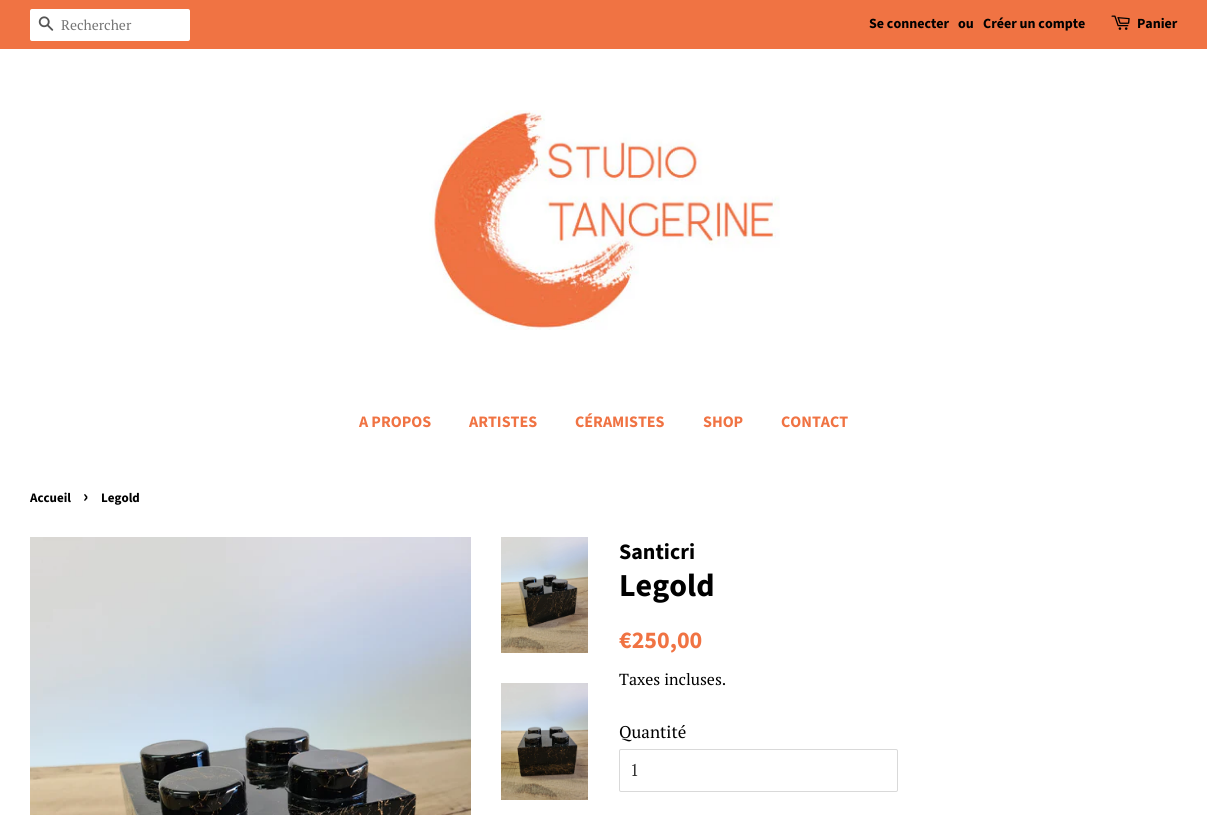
#include <cairo.h>
#include <math.h>
#include <stddef.h>


static void rgb(cairo_t *cr, int r, int g, int b)
{
	cairo_set_source_rgb(cr, r / 255.0, g / 255.0, b / 255.0);
}

static void face(cairo_t *cr, const char *family, double size, int italic, int bold)
{
	cairo_select_font_face(cr, family, italic ? CAIRO_FONT_SLANT_ITALIC : CAIRO_FONT_SLANT_NORMAL,
		bold ? CAIRO_FONT_WEIGHT_BOLD : CAIRO_FONT_WEIGHT_NORMAL);
	cairo_set_font_size(cr, size);
}

static void label(cairo_t *cr, double x, double y, const char *s)
{
	cairo_move_to(cr, x, y);
	cairo_show_text(cr, s);
}

static void rect(cairo_t *cr, double x, double y, double w, double h)
{
	cairo_rectangle(cr, x, y, w, h);
	cairo_fill(cr);
}

static void rrect(cairo_t *cr, double x, double y, double w, double h, double r)
{
	cairo_new_sub_path(cr);
	cairo_arc(cr, x + w - r, y + h - r, r, 0, M_PI / 2);
	cairo_arc(cr, x + r, y + h - r, r, M_PI / 2, M_PI);
	cairo_arc(cr, x + r, y + r, r, M_PI, 1.5 * M_PI);
	cairo_arc(cr, x + w - r, y + r, r, 1.5 * M_PI, 2 * M_PI);
	cairo_close_path(cr);
}

static void image(cairo_t *cr, const char *path, double x, double y, double w, double h)
{
	cairo_surface_t *image = cairo_image_surface_create_from_png(path);
	cairo_save(cr);
	cairo_set_source_surface(cr, image, x, y);
	cairo_rectangle(cr, x, y, w, h);
	cairo_fill(cr);
	cairo_restore(cr);
	cairo_surface_destroy(image);
}

static void draw(cairo_t *cr) {
	rgb(cr, 255, 255, 255);
	cairo_paint(cr);
	rgb(cr, 240, 115, 67);
	rect(cr, 0, 0, 1207, 49);
	rgb(cr, 255, 255, 255);
	rrect(cr, 30, 9, 160, 32, 2);
	cairo_fill(cr);
	image(cr, "image0.png", 38, 16, 16, 15);
	face(cr, "PT Serif", 14, 0, 0);
	rgb(cr, 117, 117, 117);
	label(cr, 61, 30, "Rechercher");
	face(cr, "Source Sans Pro", 14, 0, 1);
	rgb(cr, 0, 0, 0);
	label(cr, 869, 28, "Se connecter");
	label(cr, 958, 28, "ou");
	label(cr, 983, 28, "Créer un compte");
	image(cr, "image1.png", 1111, 15, 19, 15);
	label(cr, 1137, 28, "Panier");
	image(cr, "image2.png", 429, 110, 351, 220);
	face(cr, "Source Sans Pro", 16, 0, 1);
	rgb(cr, 240, 115, 67);
	label(cr, 359, 427, "A PROPOS");
	label(cr, 469, 427, "ARTISTES");
	label(cr, 575, 427, "CÉRAMISTES");
	label(cr, 703, 427, "SHOP");
	label(cr, 781, 427, "CONTACT");
	face(cr, "Source Sans Pro", 13, 0, 1);
	rgb(cr, 0, 0, 0);
	label(cr, 30, 502, "Accueil");
	face(cr, "Source Sans Pro", 18, 0, 1);
	label(cr, 83, 502, "›");
	face(cr, "Source Sans Pro", 13, 0, 1);
	label(cr, 101, 502, "Legold");
	image(cr, "image3.png", 30, 537, 441, 278);
	image(cr, "image4.png", 501, 537, 87, 116);
	image(cr, "image5.png", 501, 683, 87, 117);
	face(cr, "Source Sans Pro", 22, 0, 1);
	label(cr, 619, 559, "Santicri");
	face(cr, "Source Sans Pro", 32, 0, 1);
	label(cr, 619, 596, "Legold");
	face(cr, "Source Sans Pro", 24, 0, 1);
	rgb(cr, 240, 115, 67);
	label(cr, 619, 648, "€250,00");
	face(cr, "PT Serif", 16, 0, 0);
	rgb(cr, 0, 0, 0);
	label(cr, 619, 685, "Taxes incluses.");
	face(cr, "PT Serif", 17, 0, 0);
	label(cr, 619, 738, "Quantité");
	rrect(cr, 619.5, 749.5, 278, 42, 1.5);
	rgb(cr, 217, 217, 217);
	cairo_set_line_width(cr, 1);
	cairo_stroke(cr);
	rgb(cr, 51, 51, 51);
	label(cr, 630, 776, "1");
}

int main(void) {
	cairo_surface_t *surface = cairo_image_surface_create(CAIRO_FORMAT_RGB24, 1207, 815);
	cairo_t *cr = cairo_create(surface);
	cairo_font_options_t *options = cairo_font_options_create();
	cairo_font_options_set_hint_metrics(options, CAIRO_HINT_METRICS_OFF);
	cairo_font_options_set_hint_style(options, CAIRO_HINT_STYLE_NONE);
	cairo_set_font_options(cr, options);
	cairo_set_miter_limit(cr, 4);
	draw(cr);
	cairo_surface_write_to_png(surface, "render.png");
	cairo_font_options_destroy(options);
	cairo_destroy(cr);
	cairo_surface_destroy(surface);
	return 0;
}
